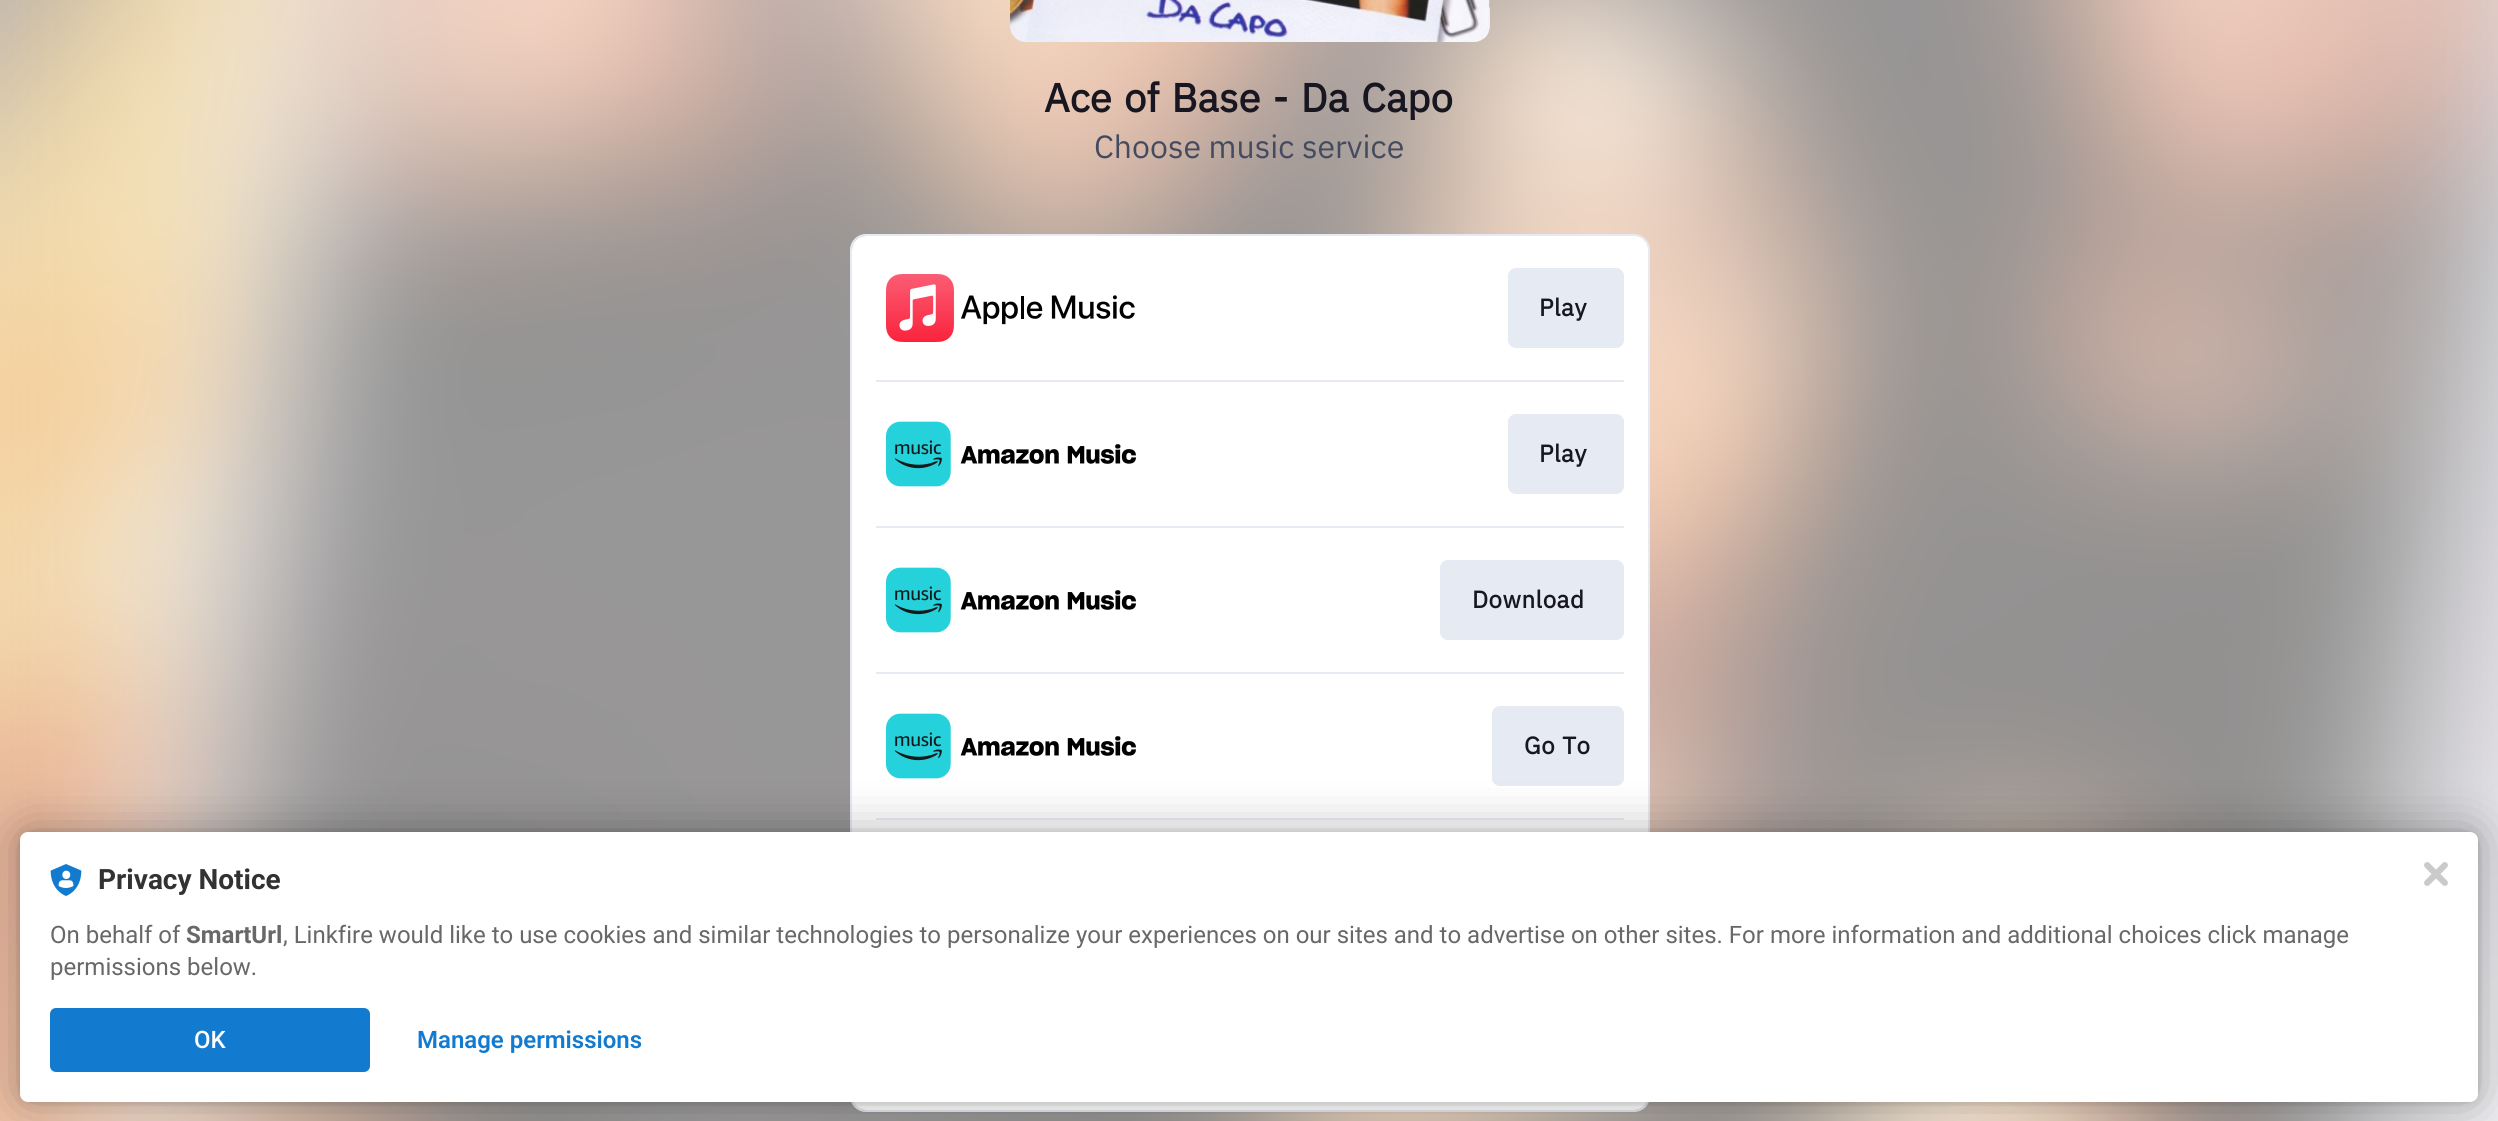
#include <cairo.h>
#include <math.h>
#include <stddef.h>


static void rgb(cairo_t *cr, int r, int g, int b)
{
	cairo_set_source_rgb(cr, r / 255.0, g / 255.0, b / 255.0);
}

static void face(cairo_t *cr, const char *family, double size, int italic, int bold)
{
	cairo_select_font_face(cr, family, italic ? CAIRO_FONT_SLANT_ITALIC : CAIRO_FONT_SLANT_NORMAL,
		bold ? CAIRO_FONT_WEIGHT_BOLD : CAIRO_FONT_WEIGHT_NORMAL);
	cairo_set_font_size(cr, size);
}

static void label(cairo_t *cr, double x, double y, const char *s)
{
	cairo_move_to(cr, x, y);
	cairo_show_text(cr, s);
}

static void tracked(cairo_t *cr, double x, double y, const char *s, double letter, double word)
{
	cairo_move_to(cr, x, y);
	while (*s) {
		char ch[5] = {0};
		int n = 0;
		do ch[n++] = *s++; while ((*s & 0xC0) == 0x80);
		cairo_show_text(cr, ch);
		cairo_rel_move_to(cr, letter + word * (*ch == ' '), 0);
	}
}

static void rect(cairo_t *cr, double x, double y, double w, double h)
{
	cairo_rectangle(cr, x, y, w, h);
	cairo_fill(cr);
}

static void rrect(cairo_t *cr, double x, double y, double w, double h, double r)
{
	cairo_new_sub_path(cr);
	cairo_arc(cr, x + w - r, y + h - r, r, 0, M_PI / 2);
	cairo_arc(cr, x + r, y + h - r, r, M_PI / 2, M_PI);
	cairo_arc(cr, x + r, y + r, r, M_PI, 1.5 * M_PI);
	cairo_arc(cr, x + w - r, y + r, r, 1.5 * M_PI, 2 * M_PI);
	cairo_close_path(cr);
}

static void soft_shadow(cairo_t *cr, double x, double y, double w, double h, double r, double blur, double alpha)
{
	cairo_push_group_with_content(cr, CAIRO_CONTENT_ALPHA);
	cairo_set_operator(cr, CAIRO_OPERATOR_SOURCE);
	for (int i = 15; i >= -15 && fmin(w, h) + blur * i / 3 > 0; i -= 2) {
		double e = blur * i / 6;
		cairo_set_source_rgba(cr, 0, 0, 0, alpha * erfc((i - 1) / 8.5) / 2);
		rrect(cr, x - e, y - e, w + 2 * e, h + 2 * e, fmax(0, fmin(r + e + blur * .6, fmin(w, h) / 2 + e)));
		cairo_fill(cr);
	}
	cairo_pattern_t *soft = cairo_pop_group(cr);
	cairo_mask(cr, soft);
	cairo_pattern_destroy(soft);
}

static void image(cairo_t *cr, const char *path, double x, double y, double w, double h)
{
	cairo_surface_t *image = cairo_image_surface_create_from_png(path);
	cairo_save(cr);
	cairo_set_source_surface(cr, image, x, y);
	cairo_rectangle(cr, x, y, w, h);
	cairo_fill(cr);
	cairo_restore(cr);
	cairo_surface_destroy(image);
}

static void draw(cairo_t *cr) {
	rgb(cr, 255, 255, 255);
	cairo_paint(cr);
	image(cr, "image0.png", 0, 0, 2498, 1121);
	image(cr, "image1.png", 1010, 0, 480, 42);
	face(cr, "IBM Plex Sans", 40, 0, 1);
	rgb(cr, 24, 23, 33);
	tracked(cr, 1044, 112, "Ace of Base - Da Capo", 0, 2.75);
	face(cr, "IBM Plex Sans", 32, 0, 0);
	rgb(cr, 69, 75, 95);
	label(cr, 1094, 158, "Choose music service");
	rrect(cr, 851, 235, 798, 876, 15);
	rgb(cr, 230, 234, 242);
	cairo_stroke(cr);
	rgb(cr, 255, 255, 255);
	rrect(cr, 852, 236, 796, 874, 14);
	cairo_fill(cr);
	image(cr, "image2.png", 886, 274, 249, 68);
	rgb(cr, 230, 234, 242);
	rrect(cr, 1508, 268, 116, 80, 8);
	cairo_fill(cr);
	face(cr, "IBM Plex Sans", 24, 0, 1);
	rgb(cr, 24, 23, 33);
	tracked(cr, 1539, 316, "Play", 0.5, 0);
	rgb(cr, 230, 234, 242);
	rect(cr, 876, 380, 748, 2);
	image(cr, "image3.png", 886, 421, 250, 66);
	rrect(cr, 1508, 414, 116, 80, 8);
	cairo_fill(cr);
	rgb(cr, 24, 23, 33);
	tracked(cr, 1539, 462, "Play", 0.5, 0);
	rgb(cr, 230, 234, 242);
	rect(cr, 876, 526, 748, 2);
	image(cr, "image3.png", 886, 567, 250, 66);
	rrect(cr, 1440, 560, 184, 80, 8);
	cairo_fill(cr);
	rgb(cr, 24, 23, 33);
	tracked(cr, 1472, 608, "Download", 0.5, 0);
	rgb(cr, 230, 234, 242);
	rect(cr, 876, 672, 748, 2);
	image(cr, "image3.png", 886, 713, 250, 66);
	rrect(cr, 1492, 706, 132, 80, 8);
	cairo_fill(cr);
	rgb(cr, 24, 23, 33);
	tracked(cr, 1524, 754, "Go To", 0.5, 1);
	rgb(cr, 230, 234, 242);
	rect(cr, 876, 818, 748, 2);
	rgb(cr, 0, 0, 0);
	soft_shadow(cr, 20, 832, 2458, 270, 8, 4, 0.12);
	soft_shadow(cr, 20, 832, 2458, 270, 8, 24, 0.3);
	rgb(cr, 255, 255, 255);
	rrect(cr, 20, 832, 2458, 270, 8);
	cairo_fill(cr);
	image(cr, "image4.png", 50, 864, 32, 32);
	face(cr, "Roboto", 28, 0, 1);
	rgb(cr, 50, 50, 50);
	label(cr, 98, 889, "Privacy Notice");
	face(cr, "Roboto", 24, 0, 0);
	rgb(cr, 104, 104, 104);
	label(cr, 50, 943, "On behalf of");
	face(cr, "Roboto", 24, 0, 1);
	label(cr, 186, 943, "SmartUrl");
	face(cr, "Roboto", 24, 0, 0);
	label(cr, 283, 943, ", Linkfire would like to use cookies and similar technologies to personalize your experiences on our sites and to advertise on other sites. For more information and additional choices click manage");
	label(cr, 50, 975, "permissions below.");
	rgb(cr, 19, 123, 207);
	rrect(cr, 50, 1008, 320, 64, 6);
	cairo_fill(cr);
	face(cr, "Roboto Medium", 24, 0, 0);
	rgb(cr, 255, 255, 255);
	label(cr, 194, 1048, "OK");
	face(cr, "Roboto SemiBold", 24, 0, 0);
	rgb(cr, 19, 123, 207);
	label(cr, 417, 1048, "Manage permissions");
	image(cr, "image5.png", 2424, 862, 24, 24);
}

int main(void) {
	cairo_surface_t *surface = cairo_image_surface_create(CAIRO_FORMAT_RGB24, 2498, 1121);
	cairo_t *cr = cairo_create(surface);
	cairo_font_options_t *options = cairo_font_options_create();
	cairo_font_options_set_hint_metrics(options, CAIRO_HINT_METRICS_OFF);
	cairo_font_options_set_hint_style(options, CAIRO_HINT_STYLE_NONE);
	cairo_set_font_options(cr, options);
	cairo_set_miter_limit(cr, 4);
	draw(cr);
	cairo_surface_write_to_png(surface, "render.png");
	cairo_font_options_destroy(options);
	cairo_destroy(cr);
	cairo_surface_destroy(surface);
	return 0;
}
